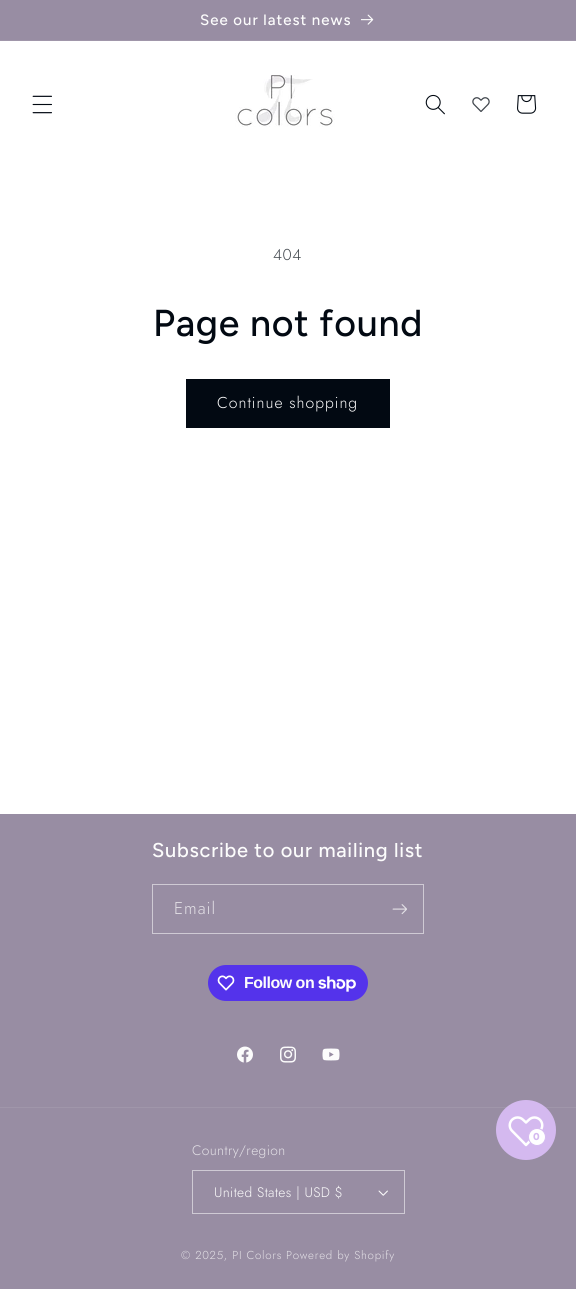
#include <cairo.h>
#include <math.h>
#include <stddef.h>


static void rgb(cairo_t *cr, int r, int g, int b)
{
	cairo_set_source_rgb(cr, r / 255.0, g / 255.0, b / 255.0);
}

static void face(cairo_t *cr, const char *family, double size, int italic, int bold)
{
	cairo_select_font_face(cr, family, italic ? CAIRO_FONT_SLANT_ITALIC : CAIRO_FONT_SLANT_NORMAL,
		bold ? CAIRO_FONT_WEIGHT_BOLD : CAIRO_FONT_WEIGHT_NORMAL);
	cairo_set_font_size(cr, size);
}

static void tracked(cairo_t *cr, double x, double y, const char *s, double letter, double word)
{
	cairo_move_to(cr, x, y);
	while (*s) {
		char ch[5] = {0};
		int n = 0;
		do ch[n++] = *s++; while ((*s & 0xC0) == 0x80);
		cairo_show_text(cr, ch);
		cairo_rel_move_to(cr, letter + word * (*ch == ' '), 0);
	}
}

static void rect(cairo_t *cr, double x, double y, double w, double h)
{
	cairo_rectangle(cr, x, y, w, h);
	cairo_fill(cr);
}

static void rrect(cairo_t *cr, double x, double y, double w, double h, double r)
{
	cairo_new_sub_path(cr);
	cairo_arc(cr, x + w - r, y + h - r, r, 0, M_PI / 2);
	cairo_arc(cr, x + r, y + h - r, r, M_PI / 2, M_PI);
	cairo_arc(cr, x + r, y + r, r, M_PI, 1.5 * M_PI);
	cairo_arc(cr, x + w - r, y + r, r, 1.5 * M_PI, 2 * M_PI);
	cairo_close_path(cr);
}

static void image(cairo_t *cr, const char *path, double x, double y, double w, double h)
{
	cairo_surface_t *image = cairo_image_surface_create_from_png(path);
	cairo_save(cr);
	cairo_set_source_surface(cr, image, x, y);
	cairo_rectangle(cr, x, y, w, h);
	cairo_fill(cr);
	cairo_restore(cr);
	cairo_surface_destroy(image);
}

static void draw(cairo_t *cr) {
	rgb(cr, 255, 255, 255);
	cairo_paint(cr);
	rgb(cr, 152, 141, 163);
	rect(cr, 0, 0, 576, 40);
	rgb(cr, 160, 150, 170);
	rect(cr, 0, 40, 576, 1);
	face(cr, "Figtree Medium", 15, 0, 0);
	rgb(cr, 252, 252, 252);
	tracked(cr, 200, 25, "See our latest news", 1, 0);
	image(cr, "image0.png", 361, 14, 13, 11);
	image(cr, "image1.png", 32, 95, 20, 19);
	image(cr, "image2.png", 235, 75, 100, 52);
	image(cr, "image3.png", 425, 94, 20, 21);
	image(cr, "image4.png", 472, 97, 18, 15);
	image(cr, "image5.png", 517, 95, 20, 19);
	face(cr, "Jost Light", 15.75, 0, 0);
	rgb(cr, 65, 71, 77);
	tracked(cr, 273, 260, "404", 0.5, 0);
	face(cr, "Figtree Medium", 37.5, 0, 0);
	rgb(cr, 2, 9, 18);
	tracked(cr, 153, 336, "Page not found", 0.75, 0);
	rect(cr, 186, 379, 204, 49);
	face(cr, "Jost Light", 15.75, 0, 0);
	rgb(cr, 252, 252, 252);
	tracked(cr, 217, 408, "Continue shopping", 1, 0);
	rgb(cr, 152, 141, 163);
	rect(cr, 0, 814, 576, 475);
	face(cr, "Figtree Medium", 20, 0, 0);
	rgb(cr, 252, 252, 252);
	tracked(cr, 152, 857, "Subscribe to our mailing list", 0.75, 0);
	cairo_rectangle(cr, 152.5, 884.5, 271, 49);
	rgb(cr, 207, 202, 212);
	cairo_set_line_width(cr, 1);
	cairo_stroke(cr);
	face(cr, "Jost Light", 17, 0, 0);
	rgb(cr, 227, 224, 230);
	tracked(cr, 174, 914, "Email", 1, 0);
	image(cr, "image6.png", 392, 904, 15, 11);
	rgb(cr, 84, 51, 235);
	rrect(cr, 208, 965, 160, 36, 18);
	cairo_fill(cr);
	image(cr, "image7.png", 217, 975, 18, 16);
	face(cr, "Liberation Sans", 16, 0, 1);
	rgb(cr, 252, 252, 252);
	tracked(cr, 244, 988, "Follow on", -0.5, 0);
	image(cr, "image8.png", 318, 976, 38, 16);
	image(cr, "image9.png", 237, 1046, 16, 17);
	image(cr, "image10.png", 280, 1046, 16, 17);
	image(cr, "image11.png", 322, 1048, 18, 13);
	rgb(cr, 160, 150, 170);
	rect(cr, 0, 1107, 576, 1);
	face(cr, "Jost Light", 13.75, 0, 0);
	rgb(cr, 227, 224, 230);
	tracked(cr, 192, 1155, "Country/region", 0.4, 0);
	image(cr, "image12.png", 378, 1190, 10, 6);
	cairo_rectangle(cr, 192.5, 1170.5, 212, 43);
	rgb(cr, 207, 202, 212);
	cairo_stroke(cr);
	rgb(cr, 252, 252, 252);
	tracked(cr, 214, 1197, "United States | USD $", 0.4, 0);
	face(cr, "Jost Light", 11.5, 0, 0);
	rgb(cr, 227, 224, 230);
	tracked(cr, 181, 1259, "© 2025, PI Colors", 0.75, 0);
	tracked(cr, 286, 1259, "Powered by Shopify", 0.75, 0);
	rgb(cr, 212, 185, 239);
	cairo_new_path(cr);
	cairo_arc(cr, 526, 1130, 30, 0, 2 * M_PI);
	cairo_fill(cr);
	image(cr, "image13.png", 508, 1116, 36, 31);
	rgb(cr, 255, 255, 255);
	cairo_arc(cr, 537, 1137, 8.5, 0, 2 * M_PI);
	cairo_fill_preserve(cr);
	rgb(cr, 212, 185, 239);
	cairo_stroke(cr);
	face(cr, "Jost", 10, 0, 1);
	tracked(cr, 533, 1140, "0", 0.5, 0);
}

int main(void) {
	cairo_surface_t *surface = cairo_image_surface_create(CAIRO_FORMAT_RGB24, 576, 1289);
	cairo_t *cr = cairo_create(surface);
	cairo_font_options_t *options = cairo_font_options_create();
	cairo_font_options_set_hint_metrics(options, CAIRO_HINT_METRICS_OFF);
	cairo_font_options_set_hint_style(options, CAIRO_HINT_STYLE_NONE);
	cairo_set_font_options(cr, options);
	cairo_set_miter_limit(cr, 4);
	draw(cr);
	cairo_surface_write_to_png(surface, "render.png");
	cairo_font_options_destroy(options);
	cairo_destroy(cr);
	cairo_surface_destroy(surface);
	return 0;
}
